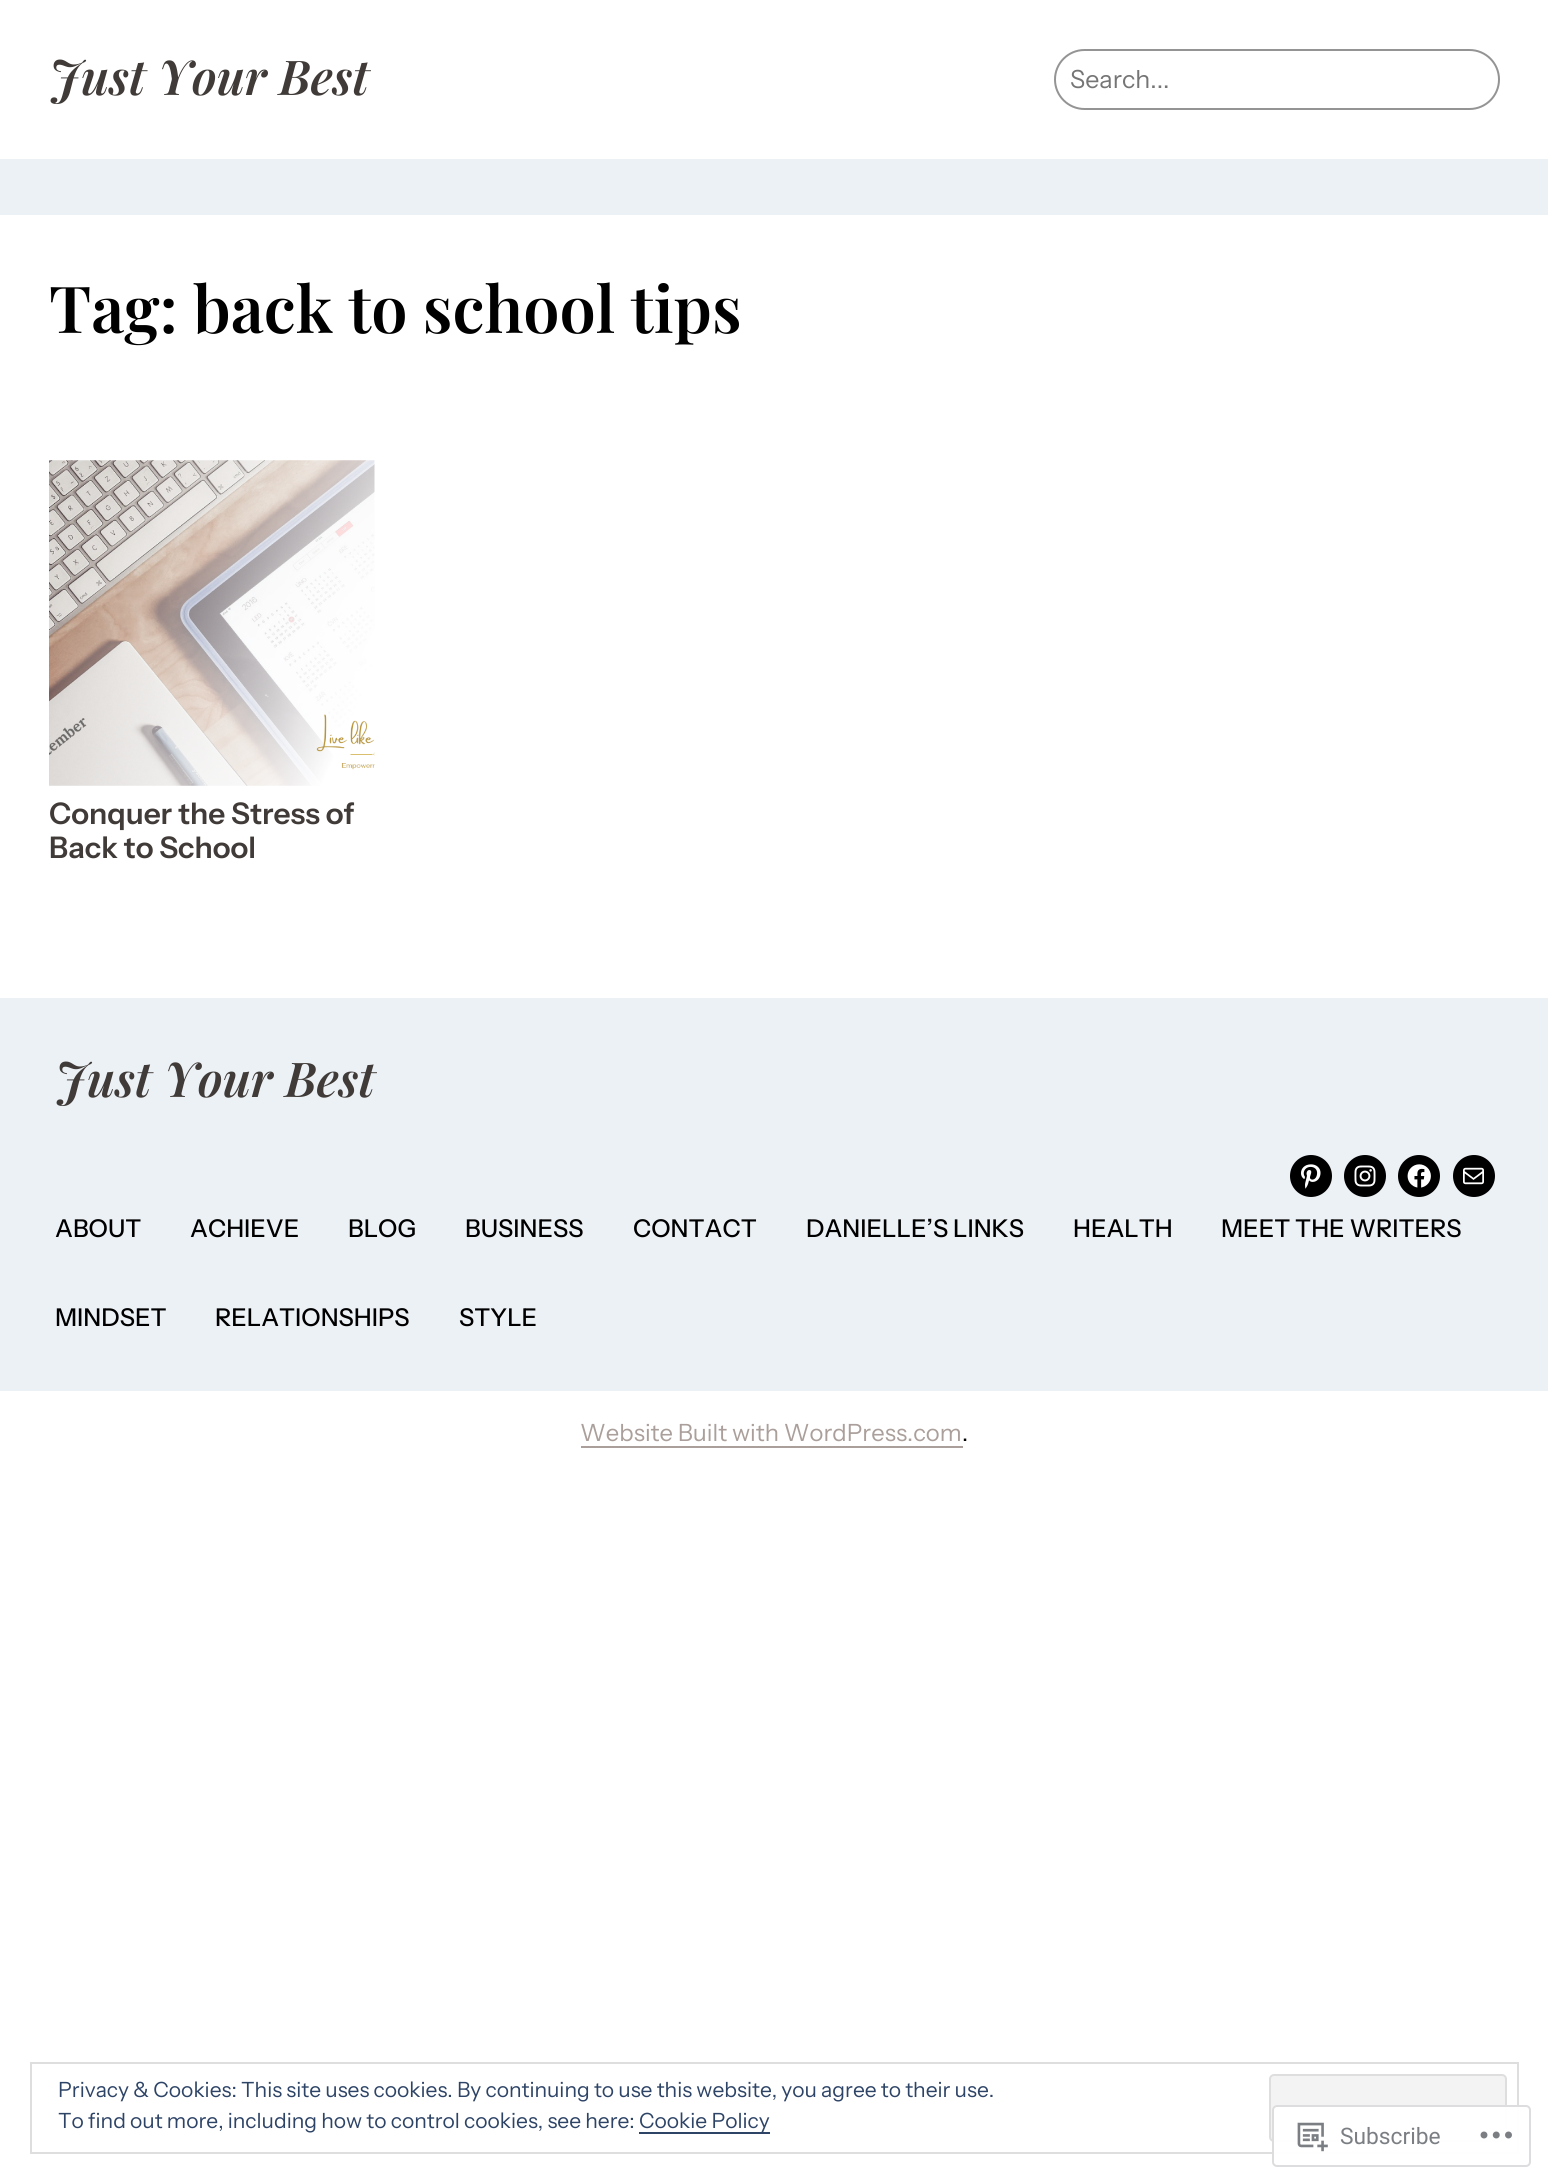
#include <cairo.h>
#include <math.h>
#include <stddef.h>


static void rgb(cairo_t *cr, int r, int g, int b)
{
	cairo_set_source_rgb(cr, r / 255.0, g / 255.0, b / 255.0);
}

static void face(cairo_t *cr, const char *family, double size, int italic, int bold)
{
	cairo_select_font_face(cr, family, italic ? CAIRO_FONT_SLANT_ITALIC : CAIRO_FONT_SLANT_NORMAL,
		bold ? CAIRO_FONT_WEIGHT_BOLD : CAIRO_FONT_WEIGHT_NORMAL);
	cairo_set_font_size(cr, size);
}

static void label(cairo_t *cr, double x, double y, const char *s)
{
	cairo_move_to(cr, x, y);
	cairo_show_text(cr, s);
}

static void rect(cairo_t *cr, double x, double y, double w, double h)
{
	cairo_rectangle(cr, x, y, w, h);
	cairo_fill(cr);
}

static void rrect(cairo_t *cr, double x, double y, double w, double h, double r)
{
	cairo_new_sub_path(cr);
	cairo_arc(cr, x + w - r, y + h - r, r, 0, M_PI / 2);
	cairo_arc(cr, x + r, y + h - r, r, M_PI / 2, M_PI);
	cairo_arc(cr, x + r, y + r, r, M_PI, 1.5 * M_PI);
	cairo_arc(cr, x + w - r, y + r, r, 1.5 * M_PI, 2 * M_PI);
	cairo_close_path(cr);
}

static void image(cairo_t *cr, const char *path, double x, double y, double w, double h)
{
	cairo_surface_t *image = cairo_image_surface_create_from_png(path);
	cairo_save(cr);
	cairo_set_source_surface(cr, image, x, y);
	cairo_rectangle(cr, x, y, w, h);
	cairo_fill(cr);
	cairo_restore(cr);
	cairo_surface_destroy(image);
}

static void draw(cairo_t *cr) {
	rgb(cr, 255, 255, 255);
	cairo_paint(cr);
	face(cr, "Playfair Display SemiBold", 48, 1, 0);
	rgb(cr, 64, 59, 56);
	label(cr, 49, 95, "Just Your Best");
	rrect(cr, 1055, 50, 444, 59, 29.5);
	rgb(cr, 148, 148, 148);
	cairo_stroke(cr);
	face(cr, "Instrument Sans", 25, 0, 0);
	rgb(cr, 117, 117, 117);
	label(cr, 1070, 88, "Search...");
	rgb(cr, 236, 241, 246);
	rect(cr, 0, 159, 1548, 56);
	face(cr, "Playfair Display SemiBold", 64.75, 0, 0);
	rgb(cr, 0, 0, 0);
	label(cr, 49, 333, "Tag: back to school tips");
	image(cr, "image0.png", 49, 460, 326, 326);
	face(cr, "Instrument Sans SemiBold", 29.75, 0, 0);
	rgb(cr, 64, 59, 56);
	label(cr, 49, 824, "Conquer the Stress of");
	label(cr, 49, 858, "Back to School");
	rgb(cr, 236, 241, 246);
	rect(cr, 0, 998, 1548, 393);
	face(cr, "Playfair Display SemiBold", 48, 1, 0);
	rgb(cr, 64, 59, 56);
	label(cr, 55, 1097, "Just Your Best");
	rgb(cr, 0, 0, 0);
	cairo_new_path(cr);
	cairo_arc(cr, 1311, 1176, 21, 0, 2 * M_PI);
	cairo_fill(cr);
	image(cr, "image1.png", 1301, 1164, 20, 25);
	cairo_arc(cr, 1365, 1176, 21, 0, 2 * M_PI);
	cairo_fill(cr);
	image(cr, "image2.png", 1354, 1165, 22, 22);
	cairo_arc(cr, 1419, 1176, 21, 0, 2 * M_PI);
	cairo_fill(cr);
	image(cr, "image3.png", 1407, 1164, 24, 24);
	cairo_arc(cr, 1474, 1176, 21, 0, 2 * M_PI);
	cairo_fill(cr);
	image(cr, "image4.png", 1463, 1167, 21, 18);
	face(cr, "Instrument Sans Medium", 24.5, 0, 0);
	label(cr, 55, 1237, "ABOUT");
	label(cr, 190, 1237, "ACHIEVE");
	label(cr, 348, 1237, "BLOG");
	label(cr, 465, 1237, "BUSINESS");
	label(cr, 633, 1237, "CONTACT");
	label(cr, 806, 1237, "DANIELLE’S LINKS");
	label(cr, 1073, 1237, "HEALTH");
	label(cr, 1221, 1237, "MEET THE WRITERS");
	label(cr, 55, 1326, "MINDSET");
	label(cr, 215, 1326, "RELATIONSHIPS");
	label(cr, 459, 1326, "STYLE");
	face(cr, "Instrument Sans", 23.75, 0, 0);
	rgb(cr, 170, 159, 154);
	label(cr, 580, 1441, "Website Built with WordPress.com");
	rect(cr, 581, 1446, 382, 2);
	rgb(cr, 0, 0, 0);
	label(cr, 962, 1441, ".");
	cairo_rectangle(cr, 31, 2063, 1487, 90);
	rgb(cr, 222, 222, 222);
	cairo_stroke(cr);
	face(cr, "Instrument Sans", 21, 0, 0);
	rgb(cr, 46, 68, 103);
	label(cr, 58, 2097, "Privacy & Cookies: This site uses cookies. By continuing to use this website, you agree to their use.");
	rgb(cr, 243, 243, 243);
	rrect(cr, 1270, 2075, 236, 66, 4);
	cairo_fill_preserve(cr);
	rgb(cr, 222, 222, 222);
	cairo_stroke(cr);
	rgb(cr, 46, 68, 103);
	label(cr, 58, 2128, "To find out more, including how to control cookies, see here:");
	rect(cr, 639, 2132, 131, 2);
	label(cr, 639, 2128, "Cookie Policy");
	cairo_set_source_rgba(cr, 1, 1, 1, 0.98);
	rrect(cr, 1272, 2105, 259, 62, 5);
	cairo_fill(cr);
	rrect(cr, 1273, 2106, 257, 60, 4);
	cairo_set_source_rgba(cr, 0.863, 0.863, 0.871, 0.98);
	cairo_stroke(cr);
	image(cr, "image5.png", 1297, 2122, 31, 30);
	face(cr, "Roboto", 22.75, 0, 0);
	rgb(cr, 123, 127, 132);
	label(cr, 1340, 2144, "Subscribe");
	image(cr, "image6.png", 1480, 2131, 32, 8);
}

int main(void) {
	cairo_surface_t *surface = cairo_image_surface_create(CAIRO_FORMAT_RGB24, 1548, 2184);
	cairo_t *cr = cairo_create(surface);
	cairo_font_options_t *options = cairo_font_options_create();
	cairo_font_options_set_hint_metrics(options, CAIRO_HINT_METRICS_OFF);
	cairo_font_options_set_hint_style(options, CAIRO_HINT_STYLE_NONE);
	cairo_set_font_options(cr, options);
	cairo_set_miter_limit(cr, 4);
	draw(cr);
	cairo_surface_write_to_png(surface, "render.png");
	cairo_font_options_destroy(options);
	cairo_destroy(cr);
	cairo_surface_destroy(surface);
	return 0;
}
